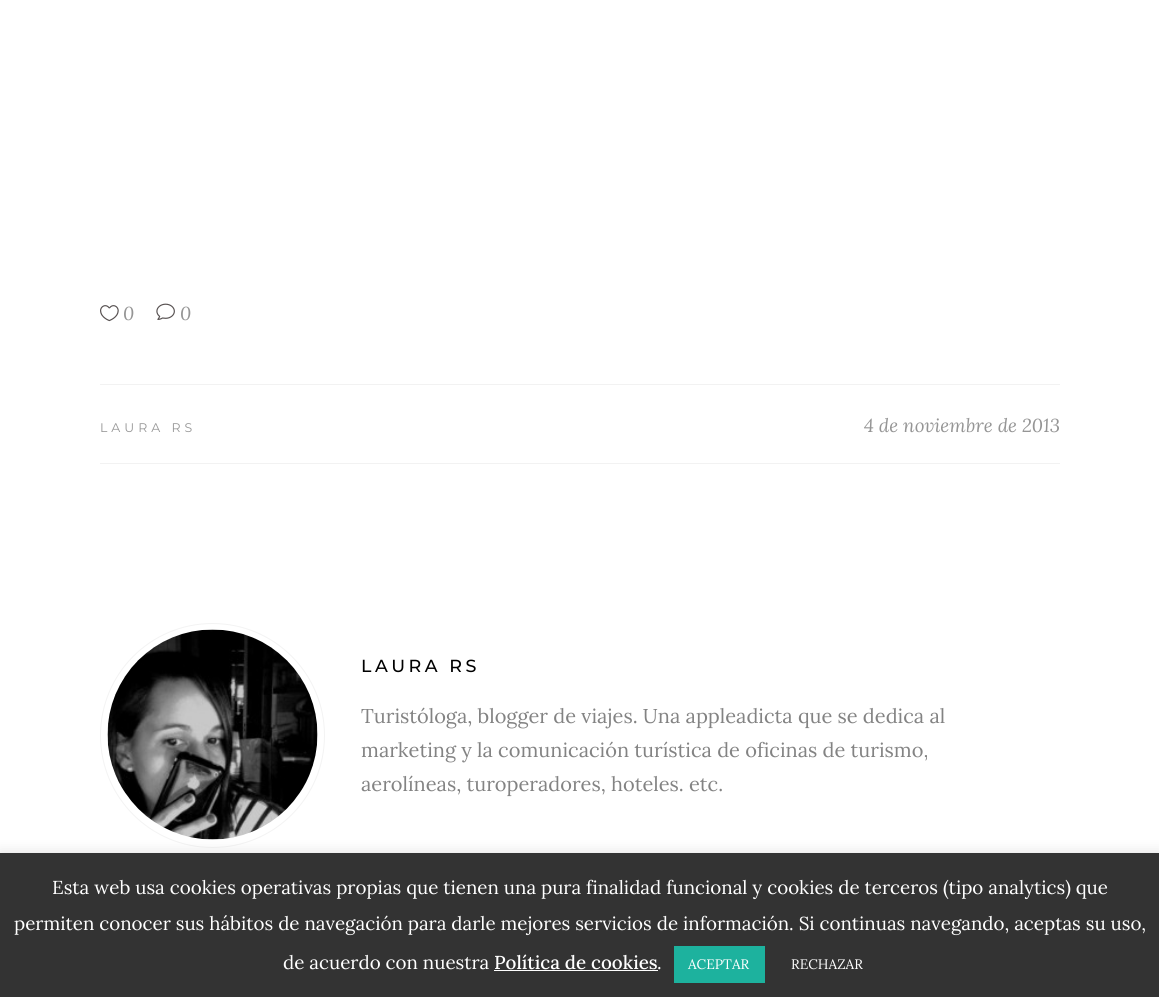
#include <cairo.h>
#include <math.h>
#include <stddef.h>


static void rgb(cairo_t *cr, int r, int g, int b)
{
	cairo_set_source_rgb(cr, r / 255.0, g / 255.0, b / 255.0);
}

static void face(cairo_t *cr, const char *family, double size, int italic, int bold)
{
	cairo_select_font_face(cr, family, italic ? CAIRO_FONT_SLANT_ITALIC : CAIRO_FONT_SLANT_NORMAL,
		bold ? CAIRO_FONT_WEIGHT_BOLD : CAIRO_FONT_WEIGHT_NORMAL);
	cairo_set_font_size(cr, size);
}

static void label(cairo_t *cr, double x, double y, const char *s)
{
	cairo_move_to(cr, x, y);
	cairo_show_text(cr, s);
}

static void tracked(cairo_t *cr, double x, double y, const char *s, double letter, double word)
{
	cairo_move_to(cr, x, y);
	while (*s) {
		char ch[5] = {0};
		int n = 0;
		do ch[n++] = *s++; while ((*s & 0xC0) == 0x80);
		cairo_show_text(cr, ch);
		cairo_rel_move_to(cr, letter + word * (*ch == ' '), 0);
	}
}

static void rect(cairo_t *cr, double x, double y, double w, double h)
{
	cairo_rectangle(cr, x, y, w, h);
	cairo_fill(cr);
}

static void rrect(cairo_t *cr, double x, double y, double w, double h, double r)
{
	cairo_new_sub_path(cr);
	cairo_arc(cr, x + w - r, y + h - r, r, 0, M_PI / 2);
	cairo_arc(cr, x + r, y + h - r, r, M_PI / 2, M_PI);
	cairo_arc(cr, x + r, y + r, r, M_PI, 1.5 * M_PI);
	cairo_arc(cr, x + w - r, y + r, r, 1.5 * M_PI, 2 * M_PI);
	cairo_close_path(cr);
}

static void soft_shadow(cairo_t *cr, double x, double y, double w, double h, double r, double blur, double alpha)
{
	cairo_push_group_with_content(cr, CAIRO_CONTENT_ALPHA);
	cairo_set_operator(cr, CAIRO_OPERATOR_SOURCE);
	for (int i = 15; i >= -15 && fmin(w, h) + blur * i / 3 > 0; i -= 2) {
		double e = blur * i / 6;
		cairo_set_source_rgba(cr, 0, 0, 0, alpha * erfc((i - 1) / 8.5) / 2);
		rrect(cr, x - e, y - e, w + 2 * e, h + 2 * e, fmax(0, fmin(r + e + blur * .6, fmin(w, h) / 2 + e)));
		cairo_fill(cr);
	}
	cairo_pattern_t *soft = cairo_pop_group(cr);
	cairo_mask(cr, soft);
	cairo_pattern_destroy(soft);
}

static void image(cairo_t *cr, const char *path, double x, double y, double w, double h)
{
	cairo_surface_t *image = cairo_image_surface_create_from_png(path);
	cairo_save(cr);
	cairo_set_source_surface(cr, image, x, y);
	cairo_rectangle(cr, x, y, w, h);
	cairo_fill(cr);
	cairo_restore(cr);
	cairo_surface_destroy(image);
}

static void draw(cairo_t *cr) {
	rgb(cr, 255, 255, 255);
	cairo_paint(cr);
	rgb(cr, 242, 242, 242);
	rect(cr, 100, 463, 960, 1);
	image(cr, "image0.png", 100, 305, 19, 17);
	face(cr, "Lora", 18.75, 1, 0);
	rgb(cr, 149, 149, 149);
	label(cr, 123, 320, "0");
	image(cr, "image1.png", 156, 303, 19, 17);
	label(cr, 180, 320, "0");
	rgb(cr, 242, 242, 242);
	rect(cr, 100, 384, 960, 1);
	face(cr, "Montserrat", 12.5, 0, 0);
	rgb(cr, 149, 149, 149);
	tracked(cr, 100, 432, "LAURA RS", 4, 0);
	face(cr, "Lora", 18.75, 1, 0);
	label(cr, 864, 432, "4 de noviembre de 2013");
	cairo_new_path(cr);
	cairo_arc(cr, 212.5, 735.5, 112, 0, 2 * M_PI);
	rgb(cr, 243, 243, 243);
	cairo_set_line_width(cr, 1);
	cairo_stroke(cr);
	image(cr, "image2.png", 107, 629, 211, 211);
	face(cr, "Montserrat Medium", 17.5, 0, 0);
	rgb(cr, 0, 0, 0);
	tracked(cr, 361, 672, "LAURA RS", 3.5, 0);
	face(cr, "Lora", 20, 0, 0);
	rgb(cr, 131, 131, 131);
	label(cr, 361, 723, "Turistóloga, blogger de viajes. Una appleadicta que se dedica al");
	label(cr, 361, 757, "marketing y la comunicación turística de oficinas de turismo,");
	label(cr, 361, 791, "aerolíneas, turoperadores, hoteles. etc.");
	rgb(cr, 172, 171, 171);
	soft_shadow(cr, 0, 851, 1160, 145, 0, 6, 0.3);
	rgb(cr, 51, 51, 51);
	rect(cr, 0, 853, 1159, 144);
	face(cr, "Lora", 18.75, 0, 0);
	rgb(cr, 255, 255, 255);
	label(cr, 52, 894, "Esta web usa cookies operativas propias que tienen una pura finalidad funcional y cookies de terceros (tipo analytics) que");
	label(cr, 14, 930, "permiten conocer sus hábitos de navegación para darle mejores servicios de información. Si continuas navegando, aceptas su uso,");
	label(cr, 283, 969, "de acuerdo con nuestra");
	face(cr, "Lora Medium", 18.75, 0, 0);
	label(cr, 494, 969, "Política de cookies");
	rect(cr, 494, 970, 164, 1);
	face(cr, "Lora", 18.75, 0, 0);
	label(cr, 657, 969, ".");
	rgb(cr, 29, 178, 158);
	rect(cr, 674, 946, 91, 37);
	face(cr, "Lora", 13.75, 0, 0);
	rgb(cr, 255, 255, 255);
	label(cr, 688, 969, "ACEPTAR");
	label(cr, 791, 969, "RECHAZAR");
}

int main(void) {
	cairo_surface_t *surface = cairo_image_surface_create(CAIRO_FORMAT_RGB24, 1159, 997);
	cairo_t *cr = cairo_create(surface);
	cairo_font_options_t *options = cairo_font_options_create();
	cairo_font_options_set_hint_metrics(options, CAIRO_HINT_METRICS_OFF);
	cairo_font_options_set_hint_style(options, CAIRO_HINT_STYLE_NONE);
	cairo_set_font_options(cr, options);
	cairo_set_miter_limit(cr, 4);
	draw(cr);
	cairo_surface_write_to_png(surface, "render.png");
	cairo_font_options_destroy(options);
	cairo_destroy(cr);
	cairo_surface_destroy(surface);
	return 0;
}
